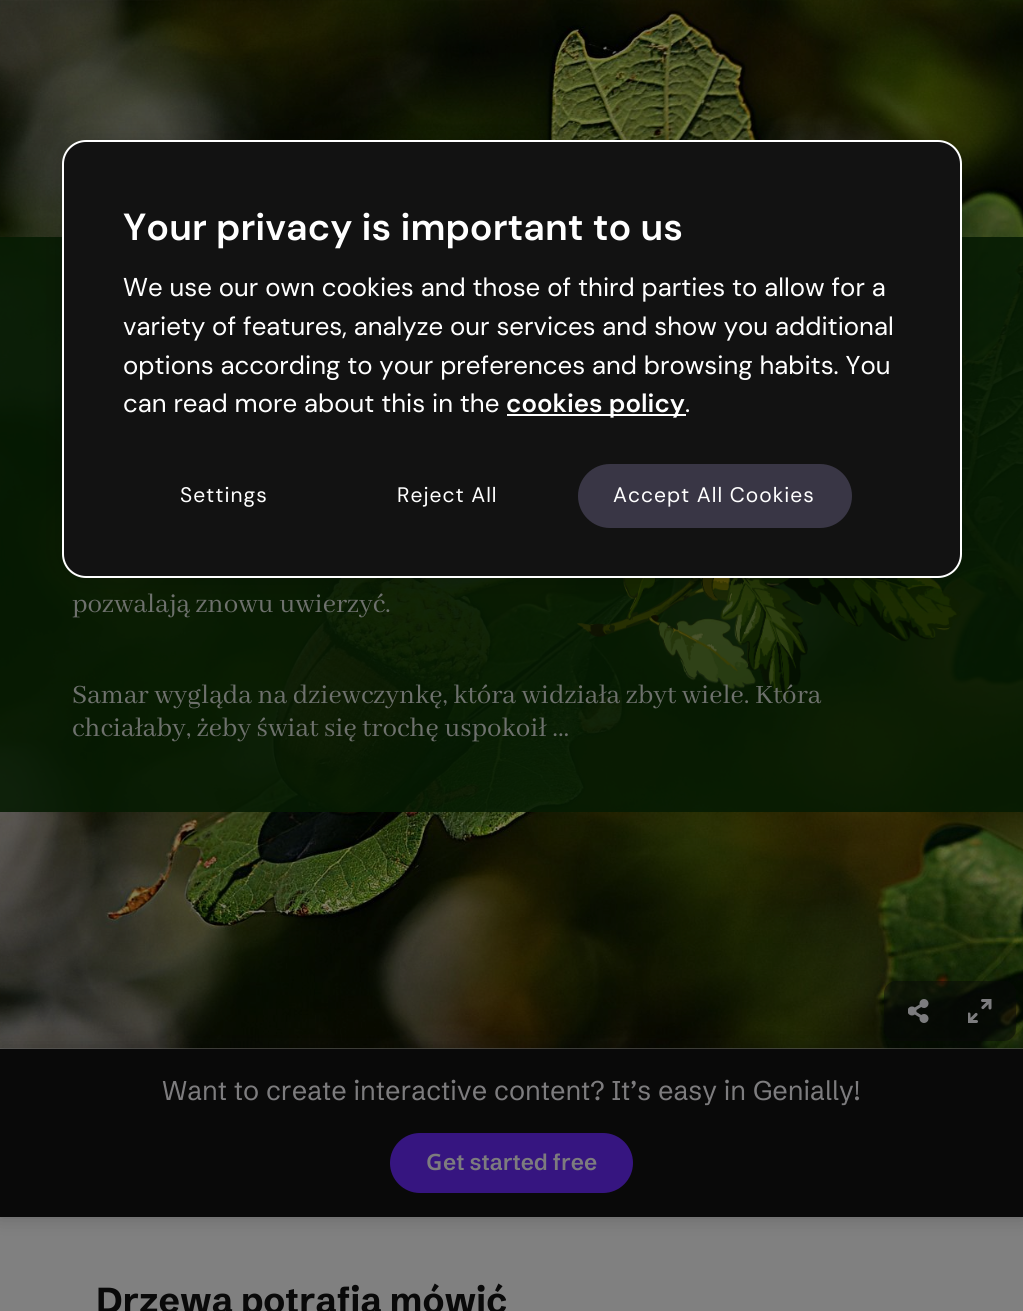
#include <cairo.h>
#include <math.h>
#include <stddef.h>


static void rgb(cairo_t *cr, int r, int g, int b)
{
	cairo_set_source_rgb(cr, r / 255.0, g / 255.0, b / 255.0);
}

static void face(cairo_t *cr, const char *family, double size, int italic, int bold)
{
	cairo_select_font_face(cr, family, italic ? CAIRO_FONT_SLANT_ITALIC : CAIRO_FONT_SLANT_NORMAL,
		bold ? CAIRO_FONT_WEIGHT_BOLD : CAIRO_FONT_WEIGHT_NORMAL);
	cairo_set_font_size(cr, size);
}

static void label(cairo_t *cr, double x, double y, const char *s)
{
	cairo_move_to(cr, x, y);
	cairo_show_text(cr, s);
}

static void tracked(cairo_t *cr, double x, double y, const char *s, double letter, double word)
{
	cairo_move_to(cr, x, y);
	while (*s) {
		char ch[5] = {0};
		int n = 0;
		do ch[n++] = *s++; while ((*s & 0xC0) == 0x80);
		cairo_show_text(cr, ch);
		cairo_rel_move_to(cr, letter + word * (*ch == ' '), 0);
	}
}

static void rect(cairo_t *cr, double x, double y, double w, double h)
{
	cairo_rectangle(cr, x, y, w, h);
	cairo_fill(cr);
}

static void rrect(cairo_t *cr, double x, double y, double w, double h, double r)
{
	cairo_new_sub_path(cr);
	cairo_arc(cr, x + w - r, y + h - r, r, 0, M_PI / 2);
	cairo_arc(cr, x + r, y + h - r, r, M_PI / 2, M_PI);
	cairo_arc(cr, x + r, y + r, r, M_PI, 1.5 * M_PI);
	cairo_arc(cr, x + w - r, y + r, r, 1.5 * M_PI, 2 * M_PI);
	cairo_close_path(cr);
}

static void soft_shadow(cairo_t *cr, double x, double y, double w, double h, double r, double blur, double alpha)
{
	cairo_push_group_with_content(cr, CAIRO_CONTENT_ALPHA);
	cairo_set_operator(cr, CAIRO_OPERATOR_SOURCE);
	for (int i = 15; i >= -15 && fmin(w, h) + blur * i / 3 > 0; i -= 2) {
		double e = blur * i / 6;
		cairo_set_source_rgba(cr, 0, 0, 0, alpha * erfc((i - 1) / 8.5) / 2);
		rrect(cr, x - e, y - e, w + 2 * e, h + 2 * e, fmax(0, fmin(r + e + blur * .6, fmin(w, h) / 2 + e)));
		cairo_fill(cr);
	}
	cairo_pattern_t *soft = cairo_pop_group(cr);
	cairo_mask(cr, soft);
	cairo_pattern_destroy(soft);
}

static void image(cairo_t *cr, const char *path, double x, double y, double w, double h)
{
	cairo_surface_t *image = cairo_image_surface_create_from_png(path);
	cairo_save(cr);
	cairo_set_source_surface(cr, image, x, y);
	cairo_rectangle(cr, x, y, w, h);
	cairo_fill(cr);
	cairo_restore(cr);
	cairo_surface_destroy(image);
}

static void draw(cairo_t *cr) {
	rgb(cr, 128, 128, 128);
	cairo_paint(cr);
	image(cr, "image0.png", 0, 0, 1023, 1049);
	cairo_set_source_rgba(cr, 0.024, 0.106, 0.012, 0.9);
	rect(cr, 0, 237, 1023, 575);
	image(cr, "image1.png", 577, 578, 384, 124);
	rgb(cr, 0, 0, 0);
	soft_shadow(cr, 62, 140, 900, 438, 24, 13.5, 0.2);
	rgb(cr, 18, 18, 18);
	rrect(cr, 63, 141, 898, 436, 23);
	cairo_fill_preserve(cr);
	rgb(cr, 255, 255, 255);
	cairo_stroke(cr);
	face(cr, "DM Sans SemiBold", 37.75, 0, 0);
	label(cr, 123, 240, "Your privacy is important to us");
	face(cr, "DM Sans", 25.8, 0, 0);
	label(cr, 123, 296, "We use our own cookies and those of third parties to allow for a");
	label(cr, 123, 335, "variety of features, analyze our services and show you additional");
	label(cr, 123, 374, "options according to your preferences and browsing habits. You");
	label(cr, 123, 412, "can read more about this in the");
	rect(cr, 507, 414, 179, 2);
	face(cr, "DM Sans SemiBold", 25.8, 0, 0);
	label(cr, 506, 412, "cookies policy");
	face(cr, "DM Sans", 25.8, 0, 0);
	label(cr, 685, 412, ".");
	face(cr, "DM Sans", 21, 0, 0);
	tracked(cr, 180, 502, "Settings", 1, 0);
	tracked(cr, 397, 502, "Reject All", 1, 0);
	rgb(cr, 57, 54, 69);
	rrect(cr, 577, 463, 276, 66, 33);
	cairo_fill_preserve(cr);
	rgb(cr, 18, 18, 18);
	cairo_stroke(cr);
	rgb(cr, 255, 255, 255);
	tracked(cr, 613, 502, "Accept All Cookies", 1, 0);
	face(cr, "Abhaya Libre", 29, 0, 0);
	rgb(cr, 110, 113, 109);
	label(cr, 72, 612, "pozwalają znowu uwierzyć.");
	label(cr, 72, 703, "Samar wygląda na dziewczynkę, która widziała zbyt wiele. Która");
	label(cr, 72, 736, "chciałaby, żeby świat się trochę uspokoił ...");
	cairo_set_source_rgba(cr, 0.035, 0.035, 0.035, 0.5);
	rrect(cr, 884, 981, 132, 60, 12);
	cairo_fill(cr);
	image(cr, "image2.png", 908, 999, 21, 24);
	image(cr, "image3.png", 968, 999, 24, 24);
	rgb(cr, 9, 9, 9);
	soft_shadow(cr, 0, 1046, 1023, 168, 0, 10, 0.3);
	rgb(cr, 9, 9, 9);
	rect(cr, 0, 1049, 1023, 168);
	face(cr, "Schibsted Grotesk", 27, 0, 0);
	rgb(cr, 125, 124, 126);
	label(cr, 162, 1100, "Want to create interactive content? It’s easy in Genially!");
	rgb(cr, 54, 21, 128);
	rrect(cr, 390, 1133, 243, 60, 30);
	cairo_fill(cr);
	face(cr, "Noto Sans SemiBold", 22.5, 0, 0);
	rgb(cr, 125, 124, 126);
	label(cr, 426, 1170, "G");
	face(cr, "Schibsted Grotesk SemiBold", 22.5, 0, 0);
	label(cr, 443, 1170, "et started free");
	face(cr, "Schibsted Grotesk", 36, 0, 1);
	rgb(cr, 9, 9, 9);
	label(cr, 96, 1313, "Drzewa potrafią mówić");
}

int main(void) {
	cairo_surface_t *surface = cairo_image_surface_create(CAIRO_FORMAT_RGB24, 1023, 1311);
	cairo_t *cr = cairo_create(surface);
	cairo_font_options_t *options = cairo_font_options_create();
	cairo_font_options_set_hint_metrics(options, CAIRO_HINT_METRICS_OFF);
	cairo_font_options_set_hint_style(options, CAIRO_HINT_STYLE_NONE);
	cairo_set_font_options(cr, options);
	cairo_set_miter_limit(cr, 4);
	draw(cr);
	cairo_surface_write_to_png(surface, "render.png");
	cairo_font_options_destroy(options);
	cairo_destroy(cr);
	cairo_surface_destroy(surface);
	return 0;
}
